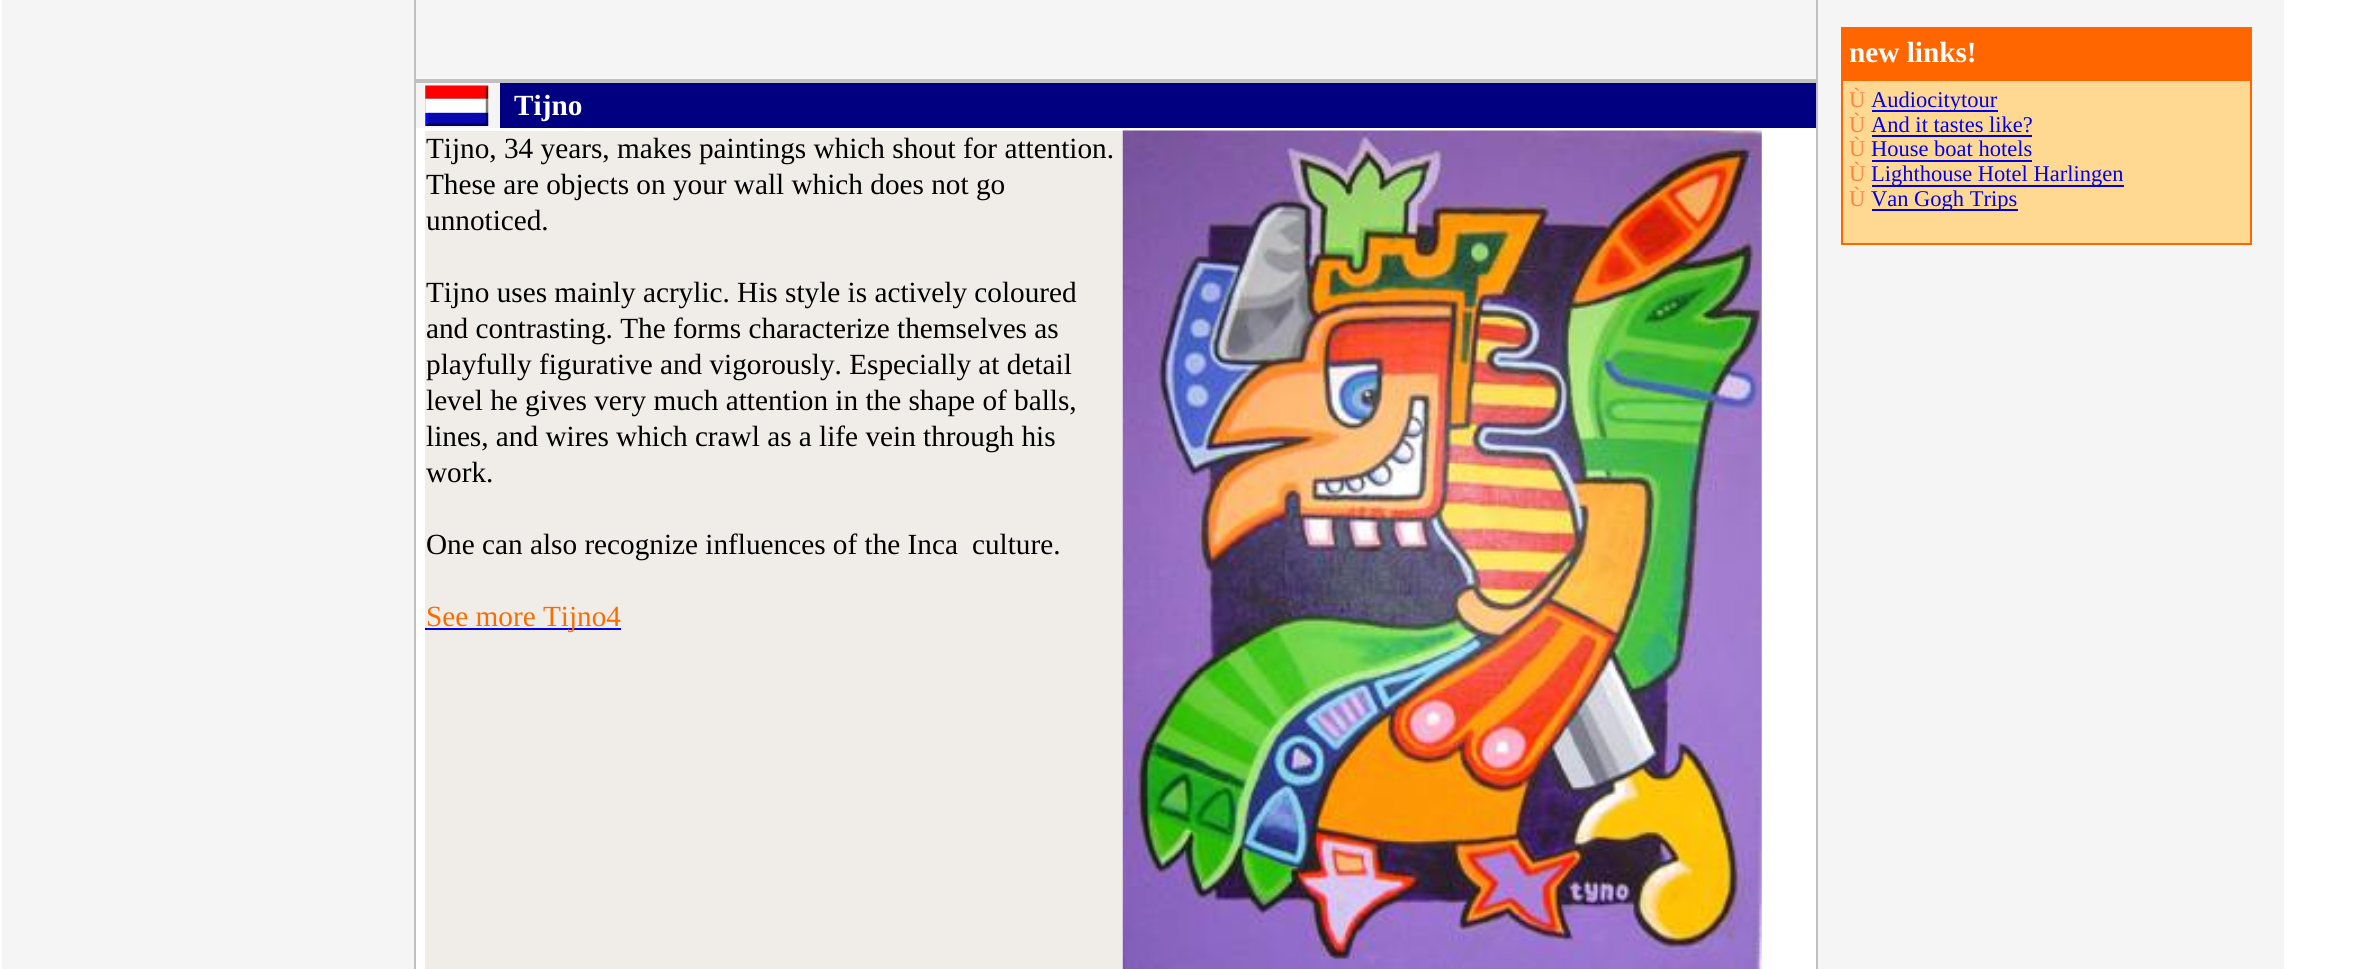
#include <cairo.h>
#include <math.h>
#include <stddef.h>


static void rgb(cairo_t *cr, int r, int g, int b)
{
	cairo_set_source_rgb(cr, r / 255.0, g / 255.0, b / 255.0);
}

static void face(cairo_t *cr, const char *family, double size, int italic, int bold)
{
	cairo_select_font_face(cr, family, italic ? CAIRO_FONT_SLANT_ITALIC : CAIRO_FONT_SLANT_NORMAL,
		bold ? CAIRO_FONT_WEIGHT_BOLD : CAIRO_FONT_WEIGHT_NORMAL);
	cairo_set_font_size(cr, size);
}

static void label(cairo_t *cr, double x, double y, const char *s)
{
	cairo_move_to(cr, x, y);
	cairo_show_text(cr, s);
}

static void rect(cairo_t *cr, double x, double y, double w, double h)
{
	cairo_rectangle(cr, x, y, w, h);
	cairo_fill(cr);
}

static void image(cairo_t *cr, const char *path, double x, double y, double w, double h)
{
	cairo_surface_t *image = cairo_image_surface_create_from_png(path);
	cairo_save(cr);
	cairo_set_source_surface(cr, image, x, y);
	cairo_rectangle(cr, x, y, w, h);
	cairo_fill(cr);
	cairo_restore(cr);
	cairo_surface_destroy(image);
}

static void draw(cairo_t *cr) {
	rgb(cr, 255, 255, 255);
	cairo_paint(cr);
	rgb(cr, 245, 245, 245);
	rect(cr, 2, 0, 2282, 969);
	rgb(cr, 192, 192, 192);
	rect(cr, 1816, 0, 2, 81);
	rect(cr, 414, 79, 1404, 2);
	rect(cr, 414, 0, 2, 81);
	rect(cr, 414, 81, 1404, 2);
	rect(cr, 414, 128, 2, 841);
	rect(cr, 414, 81, 2, 50);
	image(cr, "image0.png", 425, 85, 64, 41);
	rgb(cr, 0, 0, 128);
	rect(cr, 500, 83, 1316, 45);
	rgb(cr, 192, 192, 192);
	rect(cr, 1816, 128, 2, 841);
	rect(cr, 1816, 81, 2, 50);
	face(cr, "Liberation Serif", 29.25, 0, 1);
	rgb(cr, 255, 255, 255);
	label(cr, 514, 115, "Tijno");
	rect(cr, 416, 128, 1400, 841);
	rgb(cr, 240, 236, 232);
	rect(cr, 425, 131, 698, 838);
	face(cr, "Liberation Serif", 29.25, 0, 0);
	rgb(cr, 0, 0, 0);
	label(cr, 426, 158, "Tijno, 34 years, makes paintings which shout for attention.");
	label(cr, 426, 194, "These are objects on your wall which does not go");
	label(cr, 426, 230, "unnoticed.");
	label(cr, 426, 302, "Tijno uses mainly acrylic. His style is actively coloured");
	label(cr, 426, 338, "and contrasting. The forms characterize themselves as");
	label(cr, 426, 374, "playfully figurative and vigorously. Especially at detail");
	label(cr, 426, 410, "level he gives very much attention in the shape of balls,");
	label(cr, 426, 446, "lines, and wires which crawl as a life vein through his");
	label(cr, 426, 482, "work.");
	label(cr, 426, 554, "One can also recognize influences of the Inca");
	label(cr, 972, 554, "culture.");
	rgb(cr, 0, 0, 238);
	rect(cr, 425, 628, 196, 2);
	rgb(cr, 247, 109, 0);
	label(cr, 426, 626, "See more Tijno4");
	image(cr, "image1.png", 1122, 130, 640, 839);
	rgb(cr, 255, 102, 0);
	rect(cr, 1841, 29, 409, 50);
	rect(cr, 1841, 27, 411, 2);
	rect(cr, 1841, 79, 411, 2);
	rect(cr, 2250, 79, 2, 166);
	rect(cr, 2250, 27, 2, 54);
	face(cr, "Liberation Serif", 29.25, 0, 1);
	rgb(cr, 255, 255, 255);
	label(cr, 1849, 62, "new links!");
	rgb(cr, 255, 217, 145);
	rect(cr, 1843, 81, 407, 162);
	rgb(cr, 255, 102, 0);
	rect(cr, 1841, 243, 411, 2);
	rect(cr, 1841, 79, 2, 166);
	face(cr, "Liberation Serif", 22.5, 0, 0);
	rgb(cr, 255, 130, 66);
	label(cr, 1849, 107, "Ù");
	rgb(cr, 0, 0, 238);
	rect(cr, 1872, 110, 126, 2);
	label(cr, 1871, 107, "Audiocitytour");
	rgb(cr, 255, 130, 66);
	label(cr, 1849, 132, "Ù");
	rgb(cr, 0, 0, 238);
	label(cr, 1871, 132, "And it tastes like?");
	rect(cr, 1872, 135, 160, 2);
	rgb(cr, 255, 130, 66);
	label(cr, 1849, 156, "Ù");
	rgb(cr, 0, 0, 238);
	label(cr, 1871, 156, "House boat hotels");
	rect(cr, 1872, 160, 160, 2);
	rgb(cr, 255, 130, 66);
	label(cr, 1849, 181, "Ù");
	rgb(cr, 0, 0, 238);
	rect(cr, 1872, 185, 252, 2);
	label(cr, 1871, 181, "Lighthouse Hotel Harlingen");
	rgb(cr, 255, 130, 66);
	label(cr, 1849, 206, "Ù");
	rgb(cr, 0, 0, 238);
	rect(cr, 1872, 209, 146, 2);
	label(cr, 1871, 206, "Van Gogh Trips");
}

int main(void) {
	cairo_surface_t *surface = cairo_image_surface_create(CAIRO_FORMAT_RGB24, 2375, 969);
	cairo_t *cr = cairo_create(surface);
	cairo_font_options_t *options = cairo_font_options_create();
	cairo_font_options_set_hint_metrics(options, CAIRO_HINT_METRICS_OFF);
	cairo_font_options_set_hint_style(options, CAIRO_HINT_STYLE_NONE);
	cairo_set_font_options(cr, options);
	cairo_set_miter_limit(cr, 4);
	draw(cr);
	cairo_surface_write_to_png(surface, "render.png");
	cairo_font_options_destroy(options);
	cairo_destroy(cr);
	cairo_surface_destroy(surface);
	return 0;
}
